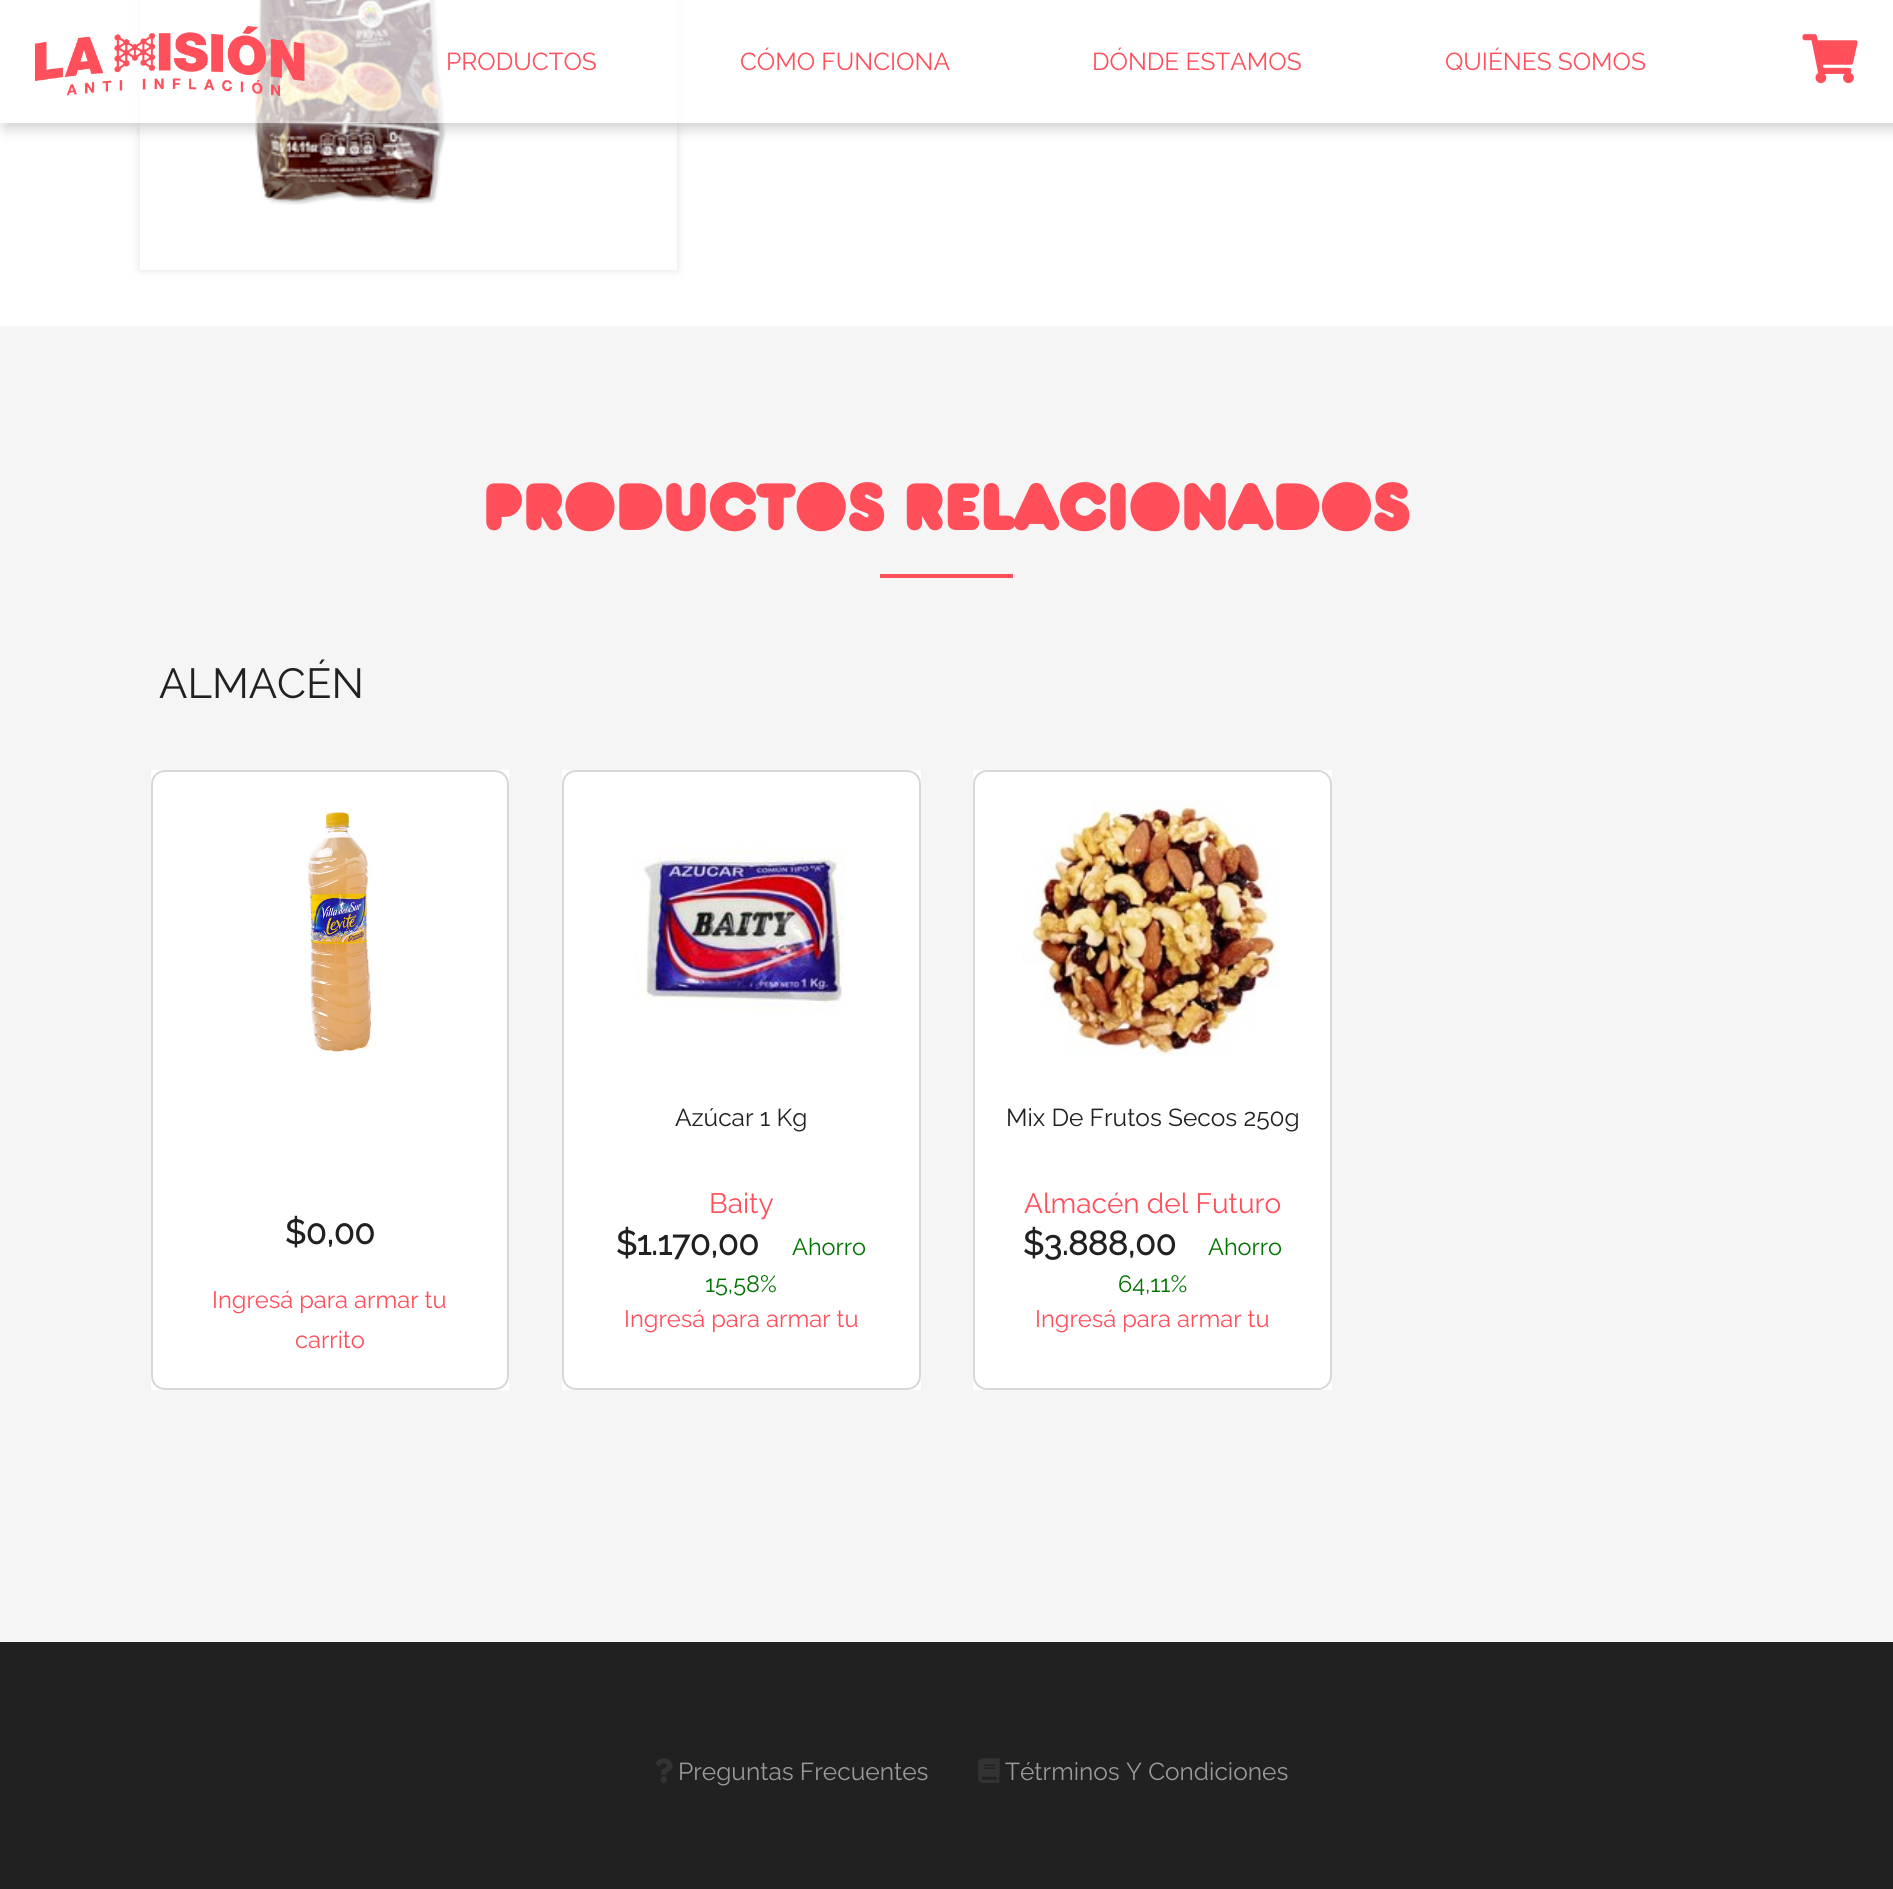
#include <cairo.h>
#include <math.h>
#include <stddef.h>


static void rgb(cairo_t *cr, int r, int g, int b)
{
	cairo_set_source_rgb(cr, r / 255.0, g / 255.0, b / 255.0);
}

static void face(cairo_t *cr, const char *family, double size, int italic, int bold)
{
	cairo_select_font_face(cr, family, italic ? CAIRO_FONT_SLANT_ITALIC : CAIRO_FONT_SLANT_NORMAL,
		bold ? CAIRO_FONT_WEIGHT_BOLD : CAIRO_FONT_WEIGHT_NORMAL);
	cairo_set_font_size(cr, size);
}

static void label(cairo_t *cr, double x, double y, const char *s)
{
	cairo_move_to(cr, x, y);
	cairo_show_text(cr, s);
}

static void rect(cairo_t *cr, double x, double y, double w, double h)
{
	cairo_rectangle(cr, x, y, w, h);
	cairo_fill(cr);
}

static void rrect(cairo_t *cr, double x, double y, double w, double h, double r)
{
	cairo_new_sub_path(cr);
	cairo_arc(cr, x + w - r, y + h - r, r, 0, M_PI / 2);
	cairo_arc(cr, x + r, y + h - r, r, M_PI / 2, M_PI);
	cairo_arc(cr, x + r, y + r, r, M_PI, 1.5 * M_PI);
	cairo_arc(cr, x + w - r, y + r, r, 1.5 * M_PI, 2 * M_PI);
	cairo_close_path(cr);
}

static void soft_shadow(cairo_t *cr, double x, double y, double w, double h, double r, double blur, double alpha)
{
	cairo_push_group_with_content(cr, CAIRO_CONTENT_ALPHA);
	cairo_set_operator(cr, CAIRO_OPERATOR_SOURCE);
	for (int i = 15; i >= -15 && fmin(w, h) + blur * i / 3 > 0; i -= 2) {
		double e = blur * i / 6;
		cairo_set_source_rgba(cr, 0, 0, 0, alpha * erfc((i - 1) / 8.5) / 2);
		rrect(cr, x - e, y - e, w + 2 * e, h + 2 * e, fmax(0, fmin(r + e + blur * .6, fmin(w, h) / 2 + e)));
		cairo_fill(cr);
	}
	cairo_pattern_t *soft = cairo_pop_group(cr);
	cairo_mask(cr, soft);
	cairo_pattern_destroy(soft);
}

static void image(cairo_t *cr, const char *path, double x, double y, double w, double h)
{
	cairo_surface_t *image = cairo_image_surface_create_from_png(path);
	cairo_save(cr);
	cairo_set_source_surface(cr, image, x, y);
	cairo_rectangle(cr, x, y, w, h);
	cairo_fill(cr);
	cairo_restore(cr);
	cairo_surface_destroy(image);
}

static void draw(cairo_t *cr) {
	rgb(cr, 255, 255, 255);
	cairo_paint(cr);
	cairo_save(cr);
	cairo_set_fill_rule(cr, CAIRO_FILL_RULE_EVEN_ODD);
	cairo_new_path(cr);
	cairo_move_to(cr, 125, 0);
	cairo_line_to(cr, 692, 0);
	cairo_line_to(cr, 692, 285);
	cairo_line_to(cr, 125, 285);
	cairo_close_path(cr);
	cairo_move_to(cr, 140, -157);
	cairo_line_to(cr, 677, -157);
	cairo_line_to(cr, 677, 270);
	cairo_line_to(cr, 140, 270);
	cairo_close_path(cr);
	cairo_clip(cr);
	rgb(cr, 225, 225, 225);
	soft_shadow(cr, 140, -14, 537, 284, 0, 4.5, 1);
	cairo_restore(cr);
	image(cr, "image2.png", 255, 0, 191, 205);
	cairo_save(cr);
	cairo_set_fill_rule(cr, CAIRO_FILL_RULE_EVEN_ODD);
	cairo_new_path(cr);
	cairo_move_to(cr, 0, 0);
	cairo_line_to(cr, 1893, 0);
	cairo_line_to(cr, 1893, 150);
	cairo_line_to(cr, 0, 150);
	cairo_close_path(cr);
	cairo_move_to(cr, 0, 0);
	cairo_line_to(cr, 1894, 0);
	cairo_line_to(cr, 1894, 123);
	cairo_line_to(cr, 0, 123);
	cairo_close_path(cr);
	cairo_clip(cr);
	rgb(cr, 183, 183, 183);
	soft_shadow(cr, 5, 5, 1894, 123, 0, 7, 0.7);
	cairo_restore(cr);
	cairo_set_source_rgba(cr, 1, 1, 1, 0.7);
	rect(cr, 0, 0, 1893, 123);
	image(cr, "image0.png", 35, 26, 270, 70);
	face(cr, "Raleway", 24.5, 0, 0);
	rgb(cr, 255, 79, 91);
	label(cr, 446, 70, "PRODUCTOS");
	label(cr, 740, 70, "CÓMO FUNCIONA");
	label(cr, 1092, 70, "DÓNDE ESTAMOS");
	label(cr, 1445, 70, "QUIÉNES SOMOS");
	image(cr, "image1.png", 1802, 34, 56, 50);
	rgb(cr, 245, 245, 245);
	rect(cr, 0, 326, 1893, 1316);
	face(cr, "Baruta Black", 70, 0, 0);
	rgb(cr, 255, 79, 91);
	label(cr, 483, 530, "Productos relacionados");
	rect(cr, 880, 574, 133, 4);
	face(cr, "Raleway", 42, 0, 0);
	rgb(cr, 33, 33, 33);
	label(cr, 159, 698, "ALMACÉN");
	rgb(cr, 255, 255, 255);
	rect(cr, 151, 770, 358, 620);
	rrect(cr, 152, 771, 356, 618, 13);
	rgb(cr, 215, 215, 215);
	cairo_stroke(cr);
	image(cr, "image3.png", 307, 812, 65, 240);
	face(cr, "Raleway", 33.5, 0, 1);
	rgb(cr, 33, 33, 33);
	label(cr, 285, 1244, "$0,00");
	face(cr, "Raleway", 23.75, 0, 0);
	rgb(cr, 255, 79, 91);
	label(cr, 212, 1308, "Ingresá para armar tu");
	label(cr, 295, 1348, "carrito");
	rgb(cr, 255, 255, 255);
	rect(cr, 562, 770, 359, 620);
	rrect(cr, 563, 771, 357, 618, 13);
	rgb(cr, 215, 215, 215);
	cairo_stroke(cr);
	image(cr, "image4.png", 635, 846, 210, 164);
	face(cr, "Raleway", 24.5, 0, 0);
	rgb(cr, 33, 33, 33);
	label(cr, 675, 1126, "Azúcar 1 Kg");
	face(cr, "Raleway", 28, 0, 0);
	rgb(cr, 255, 79, 91);
	label(cr, 709, 1213, "Baity");
	face(cr, "Raleway", 33.5, 0, 1);
	rgb(cr, 33, 33, 33);
	label(cr, 616, 1255, "$1.170,00");
	face(cr, "Raleway", 23.5, 0, 0);
	rgb(cr, 0, 114, 0);
	label(cr, 792, 1255, "Ahorro");
	label(cr, 705, 1292, "15,58%");
	face(cr, "Raleway", 23.75, 0, 0);
	rgb(cr, 255, 79, 91);
	label(cr, 624, 1327, "Ingresá para armar tu");
	rgb(cr, 255, 255, 255);
	rect(cr, 973, 770, 359, 620);
	rrect(cr, 974, 771, 357, 618, 13);
	rgb(cr, 215, 215, 215);
	cairo_stroke(cr);
	image(cr, "image5.png", 1022, 800, 257, 256);
	face(cr, "Raleway", 24.5, 0, 0);
	rgb(cr, 33, 33, 33);
	label(cr, 1006, 1126, "Mix De Frutos Secos 250g");
	face(cr, "Raleway", 28, 0, 0);
	rgb(cr, 255, 79, 91);
	label(cr, 1024, 1213, "Almacén del Futuro");
	face(cr, "Raleway", 33.5, 0, 1);
	rgb(cr, 33, 33, 33);
	label(cr, 1023, 1255, "$3.888,00");
	face(cr, "Raleway", 23.5, 0, 0);
	rgb(cr, 0, 114, 0);
	label(cr, 1208, 1255, "Ahorro");
	label(cr, 1118, 1292, "64,11%");
	face(cr, "Raleway", 23.75, 0, 0);
	rgb(cr, 255, 79, 91);
	label(cr, 1035, 1327, "Ingresá para armar tu");
	rgb(cr, 33, 33, 33);
	rect(cr, 0, 1642, 1893, 247);
	image(cr, "image6.png", 655, 1758, 18, 25);
	face(cr, "Raleway", 24.5, 0, 0);
	rgb(cr, 153, 153, 153);
	label(cr, 678, 1780, "Preguntas Frecuentes");
	image(cr, "image7.png", 978, 1758, 22, 25);
	label(cr, 1005, 1780, "Tétrminos Y Condiciones");
}

int main(void) {
	cairo_surface_t *surface = cairo_image_surface_create(CAIRO_FORMAT_RGB24, 1893, 1889);
	cairo_t *cr = cairo_create(surface);
	cairo_font_options_t *options = cairo_font_options_create();
	cairo_font_options_set_hint_metrics(options, CAIRO_HINT_METRICS_OFF);
	cairo_font_options_set_hint_style(options, CAIRO_HINT_STYLE_NONE);
	cairo_set_font_options(cr, options);
	cairo_set_miter_limit(cr, 4);
	draw(cr);
	cairo_surface_write_to_png(surface, "render.png");
	cairo_font_options_destroy(options);
	cairo_destroy(cr);
	cairo_surface_destroy(surface);
	return 0;
}
